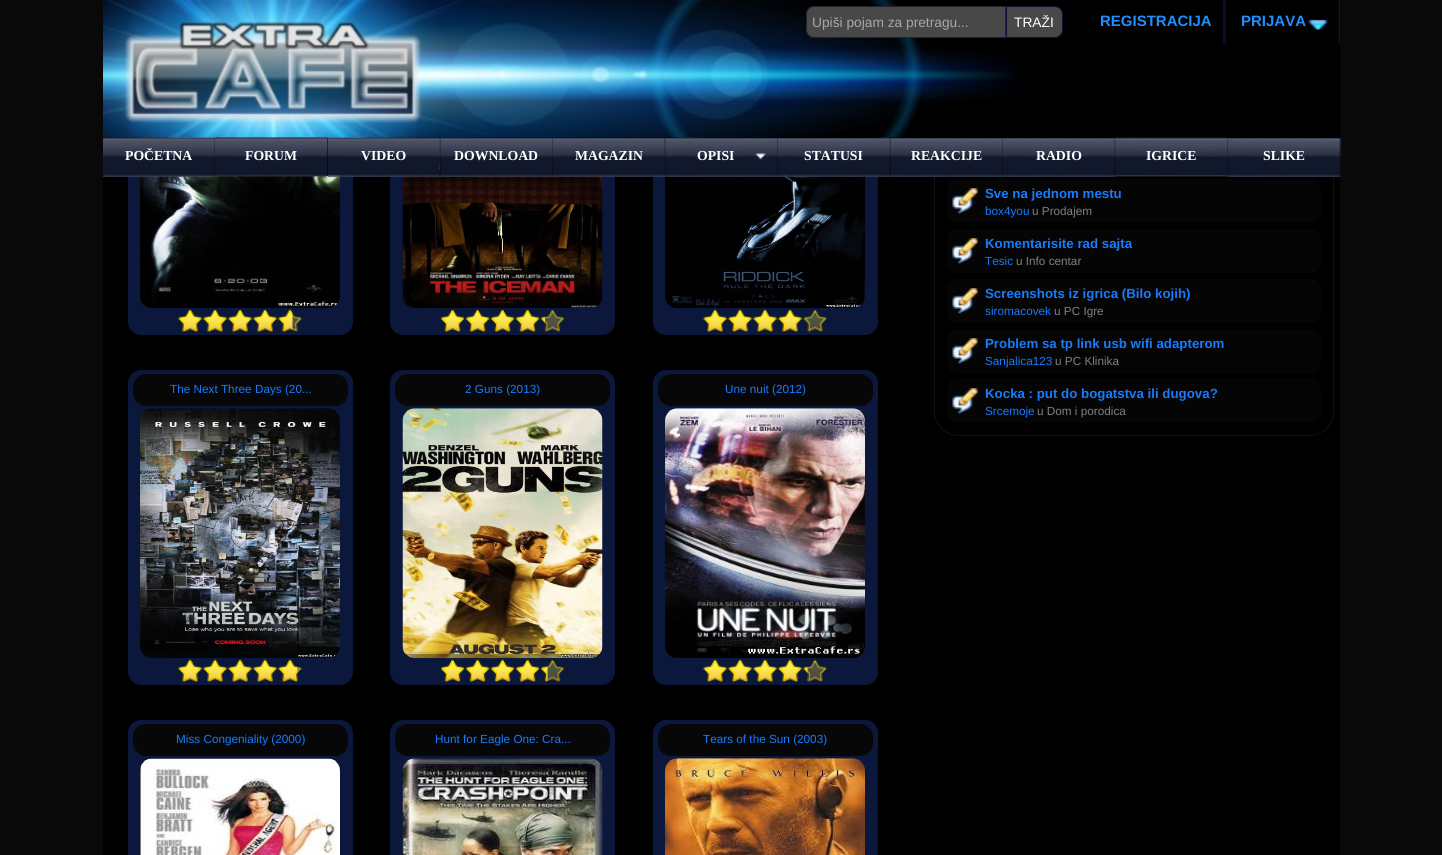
#include <cairo.h>
#include <math.h>
#include <stddef.h>


static void rgb(cairo_t *cr, int r, int g, int b)
{
	cairo_set_source_rgb(cr, r / 255.0, g / 255.0, b / 255.0);
}

static void face(cairo_t *cr, const char *family, double size, int italic, int bold)
{
	cairo_select_font_face(cr, family, italic ? CAIRO_FONT_SLANT_ITALIC : CAIRO_FONT_SLANT_NORMAL,
		bold ? CAIRO_FONT_WEIGHT_BOLD : CAIRO_FONT_WEIGHT_NORMAL);
	cairo_set_font_size(cr, size);
}

static void label(cairo_t *cr, double x, double y, const char *s)
{
	cairo_move_to(cr, x, y);
	cairo_show_text(cr, s);
}

static void rect(cairo_t *cr, double x, double y, double w, double h)
{
	cairo_rectangle(cr, x, y, w, h);
	cairo_fill(cr);
}

static void rrect(cairo_t *cr, double x, double y, double w, double h, double r)
{
	cairo_new_sub_path(cr);
	cairo_arc(cr, x + w - r, y + h - r, r, 0, M_PI / 2);
	cairo_arc(cr, x + r, y + h - r, r, M_PI / 2, M_PI);
	cairo_arc(cr, x + r, y + r, r, M_PI, 1.5 * M_PI);
	cairo_arc(cr, x + w - r, y + r, r, 1.5 * M_PI, 2 * M_PI);
	cairo_close_path(cr);
}

static void image(cairo_t *cr, const char *path, double x, double y, double w, double h)
{
	cairo_surface_t *image = cairo_image_surface_create_from_png(path);
	cairo_save(cr);
	cairo_set_source_surface(cr, image, x, y);
	cairo_rectangle(cr, x, y, w, h);
	cairo_fill(cr);
	cairo_restore(cr);
	cairo_surface_destroy(image);
}

static void draw(cairo_t *cr) {
	rgb(cr, 9, 9, 9);
	cairo_paint(cr);
	rgb(cr, 0, 0, 0);
	rect(cr, 925, 43, 415, 812);
	rrect(cr, 934.5, -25.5, 399, 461, 24.5);
	rgb(cr, 17, 17, 17);
	cairo_set_line_width(cr, 1);
	cairo_stroke(cr);
	rgb(cr, 0, 0, 0);
	rect(cr, 103, 163, 822, 692);
	rgb(cr, 11, 23, 59);
	rrect(cr, 128, 20, 225, 315, 13);
	cairo_fill(cr);
	rrect(cr, 390, 20, 225, 315, 13);
	cairo_fill(cr);
	image(cr, "image19.png", 402, 163, 201, 145);
	rrect(cr, 653, 20, 225, 315, 13);
	cairo_fill(cr);
	image(cr, "image0.png", 103, 0, 1238, 164);
	rgb(cr, 72, 72, 72);
	cairo_new_path(cr);
	cairo_move_to(cr, 814, 6.5);
	cairo_line_to(cr, 1005.5, 6.5);
	cairo_line_to(cr, 1005.5, 37.5);
	cairo_line_to(cr, 814, 37.5);
	cairo_curve_to(cr, 810, 37.5, 806.5, 34, 806.5, 30);
	cairo_line_to(cr, 806.5, 14);
	cairo_curve_to(cr, 806.5, 10, 810, 6.5, 814, 6.5);
	cairo_close_path(cr);
	cairo_fill_preserve(cr);
	rgb(cr, 37, 37, 37);
	cairo_stroke(cr);
	face(cr, "Liberation Sans", 13.75, 0, 0);
	rgb(cr, 167, 167, 167);
	label(cr, 812, 27, "Upiši pojam za pretragu...");
	rgb(cr, 72, 72, 72);
	cairo_new_path(cr);
	cairo_move_to(cr, 1006.5, 6.5);
	cairo_line_to(cr, 1055, 6.5);
	cairo_curve_to(cr, 1059, 6.5, 1062.5, 10, 1062.5, 14);
	cairo_line_to(cr, 1062.5, 30);
	cairo_curve_to(cr, 1062.5, 34, 1059, 37.5, 1055, 37.5);
	cairo_line_to(cr, 1006.5, 37.5);
	cairo_close_path(cr);
	cairo_fill_preserve(cr);
	rgb(cr, 12, 18, 59);
	cairo_stroke(cr);
	rgb(cr, 255, 255, 255);
	label(cr, 1014, 27, "TRAŽI");
	rgb(cr, 6, 14, 36);
	rect(cr, 1223, 0, 3, 44);
	face(cr, "Liberation Sans", 15, 0, 1);
	rgb(cr, 30, 144, 255);
	label(cr, 1100, 26, "REGISTRACIJA");
	image(cr, "image1.png", 1338, 0, 2, 44);
	image(cr, "image2.png", 1308, 19, 20, 11);
	label(cr, 1241, 26, "PRIJAVA");
	image(cr, "image16.png", 140, 175, 200, 133);
	rgb(cr, 0, 0, 0);
	rect(cr, 103, 138, 112, 38);
	image(cr, "image3.png", 103, 138, 113, 39);
	face(cr, "Liberation Serif", 13.75, 0, 1);
	rgb(cr, 255, 255, 255);
	label(cr, 125, 160, "POČETNA");
	rgb(cr, 0, 0, 0);
	rect(cr, 215, 138, 113, 38);
	image(cr, "image4.png", 215, 137, 113, 40);
	rgb(cr, 255, 255, 255);
	label(cr, 245, 160, "FORUM");
	image(cr, "image5.png", 328, 138, 113, 39);
	label(cr, 361, 160, "VIDEO");
	rgb(cr, 0, 0, 0);
	rect(cr, 440, 138, 113, 38);
	image(cr, "image6.png", 439, 138, 114, 39);
	rgb(cr, 255, 255, 255);
	label(cr, 454, 160, "DOWNLOAD");
	image(cr, "image22.png", 665, 175, 200, 133);
	image(cr, "image7.png", 552, 138, 114, 39);
	label(cr, 575, 160, "MAGAZIN");
	rgb(cr, 0, 0, 0);
	rect(cr, 665, 138, 113, 38);
	image(cr, "image8.png", 664, 138, 114, 39);
	image(cr, "image9.png", 755, 153, 11, 7);
	rgb(cr, 255, 255, 255);
	label(cr, 697, 160, "OPISI");
	image(cr, "image10.png", 777, 138, 114, 39);
	label(cr, 804, 160, "STATUSI");
	rgb(cr, 0, 0, 0);
	rect(cr, 890, 138, 45, 38);
	rgb(cr, 5, 5, 5);
	rrect(cr, 945.5, 177.5, 377, 47, 11.5);
	cairo_fill_preserve(cr);
	rgb(cr, 0, 0, 0);
	cairo_set_line_width(cr, 3);
	cairo_stroke(cr);
	image(cr, "image11.png", 889, 138, 114, 39);
	rgb(cr, 255, 255, 255);
	label(cr, 911, 160, "REAKCIJE");
	image(cr, "image12.png", 1002, 138, 114, 39);
	label(cr, 1036, 160, "RADIO");
	image(cr, "image13.png", 1114, 137, 114, 40);
	label(cr, 1146, 160, "IGRICE");
	rgb(cr, 0, 0, 0);
	rect(cr, 1333, 163, 1, 13);
	image(cr, "image14.png", 1227, 138, 114, 39);
	rgb(cr, 255, 255, 255);
	label(cr, 1263, 160, "SLIKE");
	image(cr, "image15.png", 952, 188, 26, 26);
	face(cr, "Liberation Sans", 13.3, 0, 1);
	rgb(cr, 22, 123, 255);
	label(cr, 985, 198, "Sve na jednom mestu");
	face(cr, "Liberation Sans", 11.75, 0, 0);
	label(cr, 985, 215, "box4you");
	rgb(cr, 128, 128, 128);
	label(cr, 1032, 215, "u Prodajem");
	rgb(cr, 5, 5, 5);
	rrect(cr, 945.5, 227.5, 377, 47, 11.5);
	cairo_fill_preserve(cr);
	rgb(cr, 0, 0, 0);
	cairo_stroke(cr);
	image(cr, "image15.png", 952, 238, 26, 26);
	face(cr, "Liberation Sans", 13.3, 0, 1);
	rgb(cr, 22, 123, 255);
	label(cr, 985, 248, "Komentarisite rad sajta");
	face(cr, "Liberation Sans", 11.75, 0, 0);
	label(cr, 985, 265, "Tesic");
	rgb(cr, 128, 128, 128);
	label(cr, 1016, 265, "u Info centar");
	rgb(cr, 5, 5, 5);
	rrect(cr, 945.5, 277.5, 377, 47, 11.5);
	cairo_fill_preserve(cr);
	rgb(cr, 0, 0, 0);
	cairo_stroke(cr);
	image(cr, "image15.png", 952, 288, 26, 26);
	face(cr, "Liberation Sans", 13.3, 0, 1);
	rgb(cr, 22, 123, 255);
	label(cr, 985, 298, "Screenshots iz igrica (Bilo kojih)");
	face(cr, "Liberation Sans", 11.75, 0, 0);
	label(cr, 985, 315, "siromacovek");
	rgb(cr, 128, 128, 128);
	label(cr, 1054, 315, "u PC Igre");
	rgb(cr, 5, 5, 5);
	rrect(cr, 945.5, 327.5, 377, 47, 11.5);
	cairo_fill_preserve(cr);
	rgb(cr, 0, 0, 0);
	cairo_stroke(cr);
	image(cr, "image15.png", 952, 338, 26, 26);
	face(cr, "Liberation Sans", 13.3, 0, 1);
	rgb(cr, 22, 123, 255);
	label(cr, 985, 348, "Problem sa tp link usb wifi adapterom");
	face(cr, "Liberation Sans", 11.75, 0, 0);
	label(cr, 985, 365, "Sanjalica123");
	rgb(cr, 128, 128, 128);
	label(cr, 1055, 365, "u PC Klinika");
	rgb(cr, 5, 5, 5);
	rrect(cr, 945.5, 377.5, 377, 47, 11.5);
	cairo_fill_preserve(cr);
	rgb(cr, 0, 0, 0);
	cairo_stroke(cr);
	image(cr, "image15.png", 952, 388, 26, 26);
	face(cr, "Liberation Sans", 13.3, 0, 1);
	rgb(cr, 22, 123, 255);
	label(cr, 985, 398, "Kocka : put do bogatstva ili dugova?");
	face(cr, "Liberation Sans", 11.75, 0, 0);
	label(cr, 985, 415, "Srcemoje");
	rgb(cr, 128, 128, 128);
	label(cr, 1037, 415, "u Dom i porodica");
	image(cr, "image17.png", 177, 309, 126, 24);
	image(cr, "image18.png", 177, 309, 116, 24);
	image(cr, "image20.png", 440, 309, 125, 24);
	image(cr, "image21.png", 440, 309, 105, 24);
	image(cr, "image23.png", 702, 309, 126, 24);
	image(cr, "image24.png", 702, 309, 101, 24);
	rgb(cr, 11, 23, 59);
	rrect(cr, 128, 370, 225, 315, 13);
	cairo_fill(cr);
	rgb(cr, 7, 7, 7);
	rrect(cr, 133, 374, 215, 32, 13);
	cairo_fill(cr);
	rgb(cr, 22, 123, 255);
	label(cr, 170, 393, "The Next Three Days (20...");
	image(cr, "image25.png", 140, 408, 200, 250);
	image(cr, "image26.png", 177, 659, 126, 24);
	image(cr, "image27.png", 177, 659, 121, 24);
	rgb(cr, 11, 23, 59);
	rrect(cr, 390, 370, 225, 315, 13);
	cairo_fill(cr);
	rgb(cr, 7, 7, 7);
	rrect(cr, 395, 374, 215, 32, 13);
	cairo_fill(cr);
	rgb(cr, 22, 123, 255);
	label(cr, 465, 393, "2 Guns (2013)");
	image(cr, "image28.png", 402, 408, 201, 251);
	image(cr, "image29.png", 440, 659, 125, 24);
	image(cr, "image30.png", 440, 659, 108, 24);
	rgb(cr, 11, 23, 59);
	rrect(cr, 653, 370, 225, 315, 13);
	cairo_fill(cr);
	rgb(cr, 7, 7, 7);
	rrect(cr, 658, 374, 215, 32, 13);
	cairo_fill(cr);
	rgb(cr, 22, 123, 255);
	label(cr, 725, 393, "Une nuit (2012)");
	image(cr, "image31.png", 665, 408, 200, 250);
	image(cr, "image32.png", 702, 659, 126, 24);
	image(cr, "image33.png", 702, 659, 106, 24);
	rgb(cr, 11, 23, 59);
	rrect(cr, 128, 720, 225, 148, 13);
	cairo_fill(cr);
	rgb(cr, 7, 7, 7);
	rrect(cr, 133, 724, 215, 32, 13);
	cairo_fill(cr);
	rgb(cr, 22, 123, 255);
	label(cr, 176, 743, "Miss Congeniality (2000)");
	image(cr, "image34.png", 140, 758, 200, 97);
	rgb(cr, 11, 23, 59);
	rrect(cr, 390, 720, 225, 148, 13);
	cairo_fill(cr);
	rgb(cr, 7, 7, 7);
	rrect(cr, 395, 724, 215, 32, 13);
	cairo_fill(cr);
	rgb(cr, 22, 123, 255);
	label(cr, 435, 743, "Hunt for Eagle One: Cra...");
	image(cr, "image35.png", 402, 758, 201, 97);
	rgb(cr, 11, 23, 59);
	rrect(cr, 653, 720, 225, 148, 13);
	cairo_fill(cr);
	rgb(cr, 7, 7, 7);
	rrect(cr, 658, 724, 215, 32, 13);
	cairo_fill(cr);
	rgb(cr, 22, 123, 255);
	label(cr, 703, 743, "Tears of the Sun (2003)");
	image(cr, "image36.png", 665, 758, 200, 97);
}

int main(void) {
	cairo_surface_t *surface = cairo_image_surface_create(CAIRO_FORMAT_RGB24, 1442, 855);
	cairo_t *cr = cairo_create(surface);
	cairo_font_options_t *options = cairo_font_options_create();
	cairo_font_options_set_hint_metrics(options, CAIRO_HINT_METRICS_OFF);
	cairo_font_options_set_hint_style(options, CAIRO_HINT_STYLE_NONE);
	cairo_set_font_options(cr, options);
	cairo_set_miter_limit(cr, 4);
	draw(cr);
	cairo_surface_write_to_png(surface, "render.png");
	cairo_font_options_destroy(options);
	cairo_destroy(cr);
	cairo_surface_destroy(surface);
	return 0;
}
